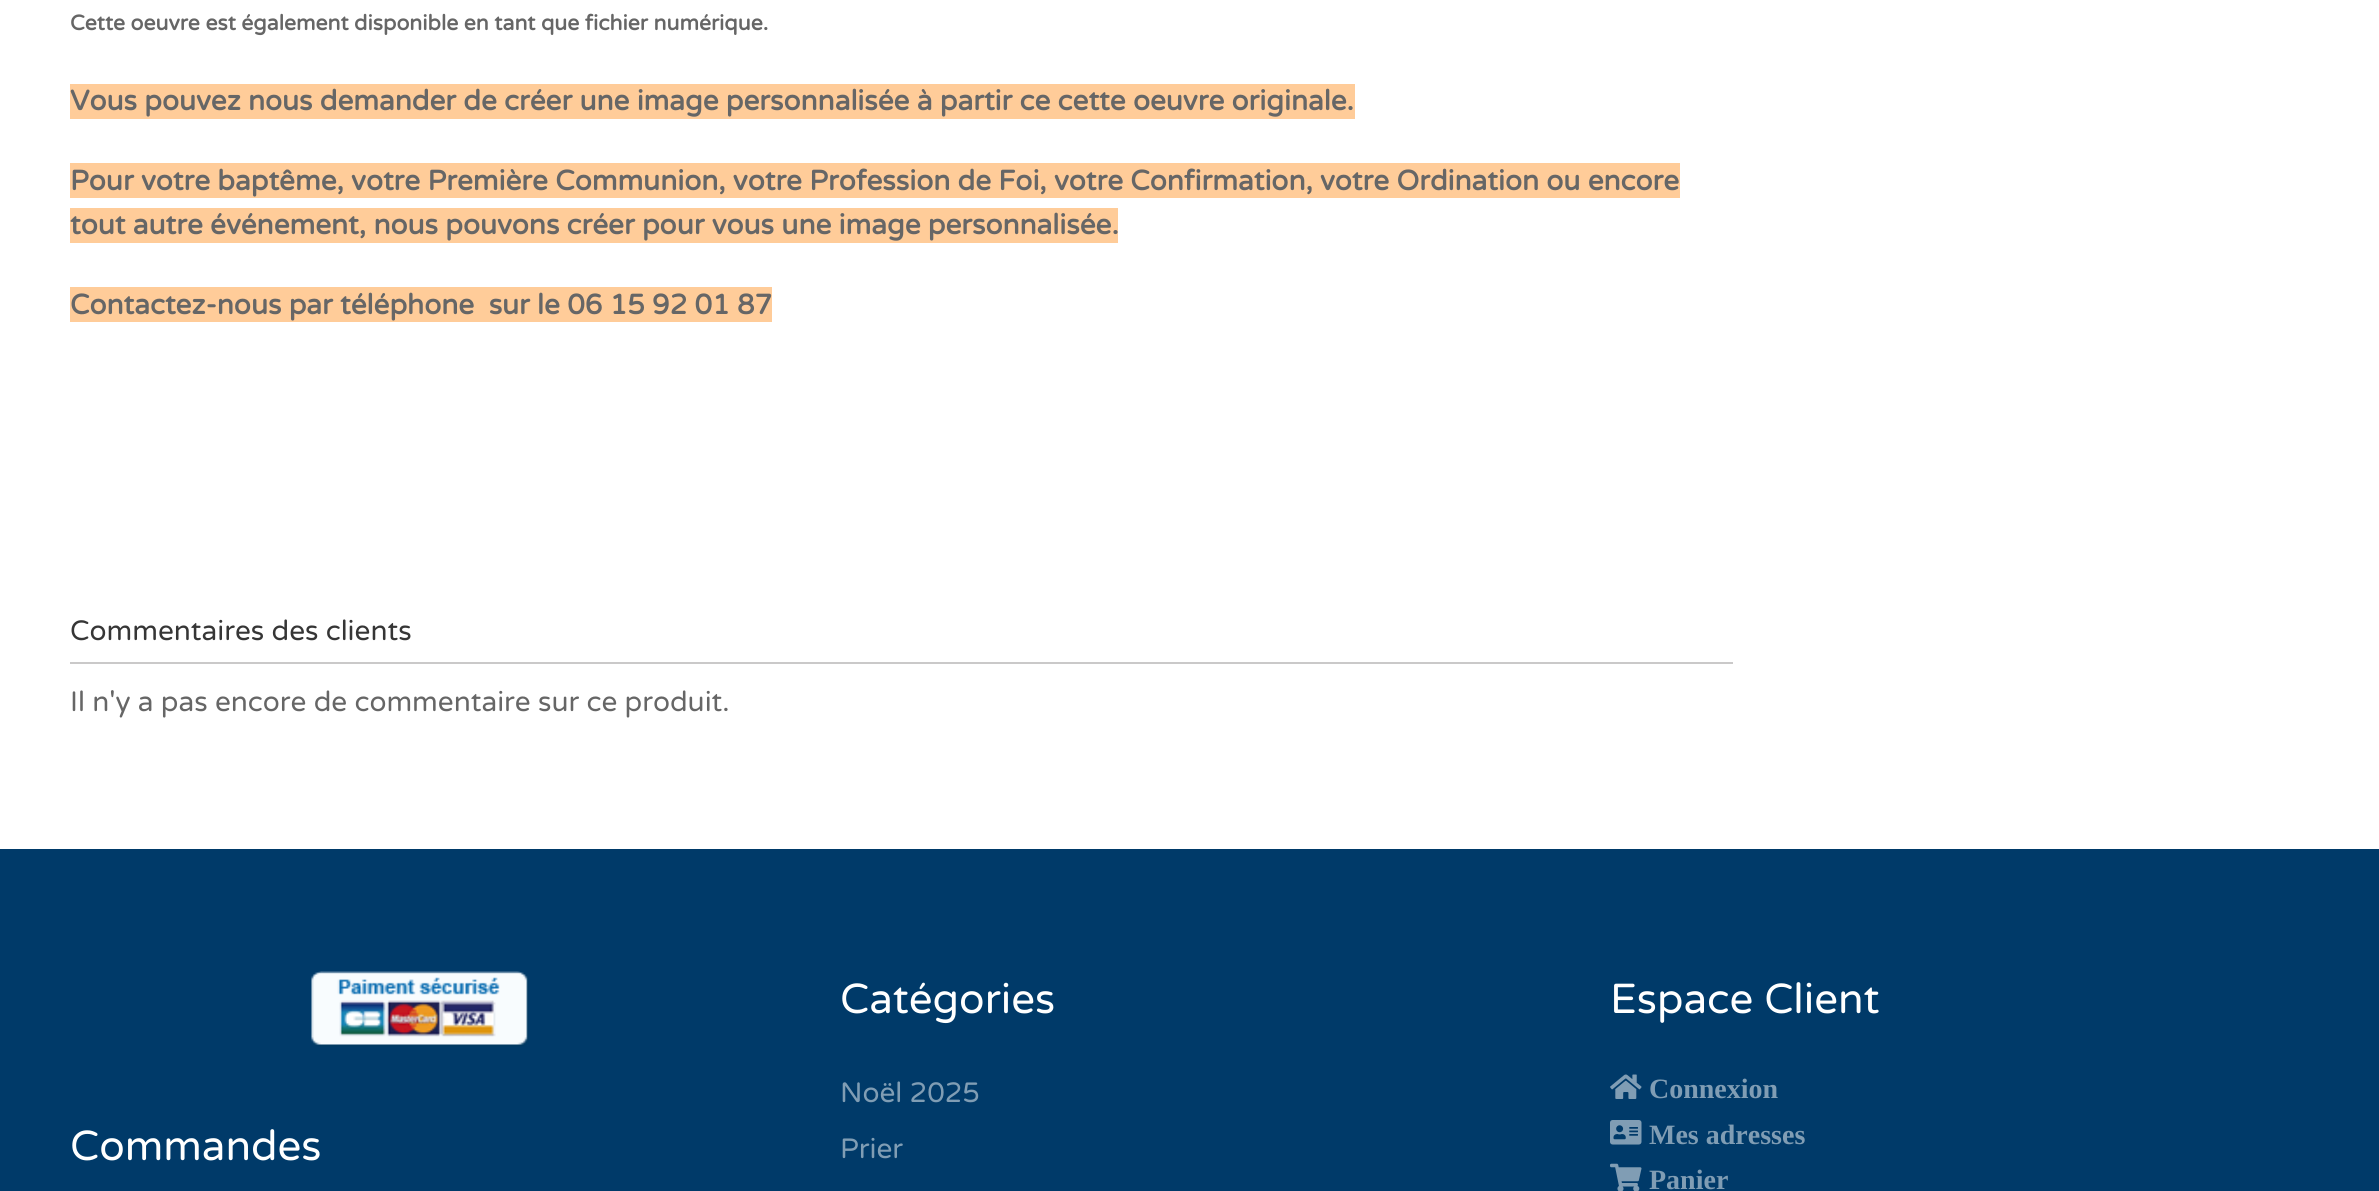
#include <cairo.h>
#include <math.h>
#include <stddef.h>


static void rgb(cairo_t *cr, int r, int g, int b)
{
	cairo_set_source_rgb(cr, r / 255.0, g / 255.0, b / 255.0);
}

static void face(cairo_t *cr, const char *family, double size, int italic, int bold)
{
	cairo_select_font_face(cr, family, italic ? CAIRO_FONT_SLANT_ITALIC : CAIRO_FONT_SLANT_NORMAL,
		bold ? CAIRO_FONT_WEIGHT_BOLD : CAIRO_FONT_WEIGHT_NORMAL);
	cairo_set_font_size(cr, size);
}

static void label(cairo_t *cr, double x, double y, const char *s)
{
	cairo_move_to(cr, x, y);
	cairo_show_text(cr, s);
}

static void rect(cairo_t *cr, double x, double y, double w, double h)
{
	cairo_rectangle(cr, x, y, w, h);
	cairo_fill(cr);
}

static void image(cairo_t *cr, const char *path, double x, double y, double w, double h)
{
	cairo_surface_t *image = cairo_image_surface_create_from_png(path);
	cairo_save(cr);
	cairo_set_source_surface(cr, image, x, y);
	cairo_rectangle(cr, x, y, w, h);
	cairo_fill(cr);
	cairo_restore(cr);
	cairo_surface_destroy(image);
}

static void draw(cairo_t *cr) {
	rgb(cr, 255, 255, 255);
	cairo_paint(cr);
	face(cr, "Varela Round", 21.25, 0, 1);
	rgb(cr, 102, 102, 102);
	label(cr, 70, 30, "Cette oeuvre est également disponible en tant que fichier numérique.");
	rgb(cr, 255, 204, 153);
	rect(cr, 70, 84, 1285, 35);
	face(cr, "Varela Round", 28, 0, 1);
	rgb(cr, 102, 102, 102);
	label(cr, 70, 110, "Vous pouvez nous demander de créer une image personnalisée à partir ce cette oeuvre originale.");
	rgb(cr, 255, 204, 153);
	rect(cr, 70, 163, 1610, 35);
	rgb(cr, 102, 102, 102);
	label(cr, 70, 190, "Pour votre baptême, votre Première Communion, votre Profession de Foi, votre Confirmation, votre Ordination ou encore");
	rgb(cr, 255, 204, 153);
	rect(cr, 70, 208, 1048, 35);
	rgb(cr, 102, 102, 102);
	label(cr, 70, 234, "tout autre événement, nous pouvons créer pour vous une image personnalisée.");
	rgb(cr, 255, 204, 153);
	rect(cr, 70, 287, 702, 35);
	rgb(cr, 102, 102, 102);
	label(cr, 70, 314, "Contactez-nous par téléphone  sur le 06 15 92 01 87");
	rgb(cr, 202, 201, 201);
	rect(cr, 70, 662, 1663, 2);
	face(cr, "Varela Round", 28, 0, 0);
	rgb(cr, 54, 54, 54);
	label(cr, 70, 640, "Commentaires des clients");
	rgb(cr, 102, 102, 102);
	label(cr, 70, 711, "Il n'y a pas encore de commentaire sur ce produit.");
	rgb(cr, 0, 58, 105);
	rect(cr, 0, 849, 2379, 342);
	image(cr, "image0.png", 311, 971, 218, 76);
	face(cr, "Varela Round", 42, 0, 0);
	rgb(cr, 255, 255, 255);
	label(cr, 70, 1160, "Commandes");
	label(cr, 840, 1013, "Catégories");
	face(cr, "Varela Round", 28, 0, 0);
	rgb(cr, 128, 157, 180);
	label(cr, 840, 1102, "Noël 2025");
	label(cr, 840, 1158, "Prier");
	face(cr, "Varela Round", 42, 0, 0);
	rgb(cr, 255, 255, 255);
	label(cr, 1610, 1013, "Espace Client");
	image(cr, "image1.png", 1610, 1074, 32, 25);
	face(cr, "Liberation Serif", 28, 0, 1);
	rgb(cr, 128, 157, 180);
	label(cr, 1649, 1098, "Connexion");
	image(cr, "image2.png", 1610, 1120, 32, 25);
	label(cr, 1649, 1144, "Mes adresses");
	image(cr, "image3.png", 1610, 1163, 32, 28);
	label(cr, 1649, 1189, "Panier");
}

int main(void) {
	cairo_surface_t *surface = cairo_image_surface_create(CAIRO_FORMAT_RGB24, 2379, 1191);
	cairo_t *cr = cairo_create(surface);
	cairo_font_options_t *options = cairo_font_options_create();
	cairo_font_options_set_hint_metrics(options, CAIRO_HINT_METRICS_OFF);
	cairo_font_options_set_hint_style(options, CAIRO_HINT_STYLE_NONE);
	cairo_set_font_options(cr, options);
	cairo_set_miter_limit(cr, 4);
	draw(cr);
	cairo_surface_write_to_png(surface, "render.png");
	cairo_font_options_destroy(options);
	cairo_destroy(cr);
	cairo_surface_destroy(surface);
	return 0;
}
